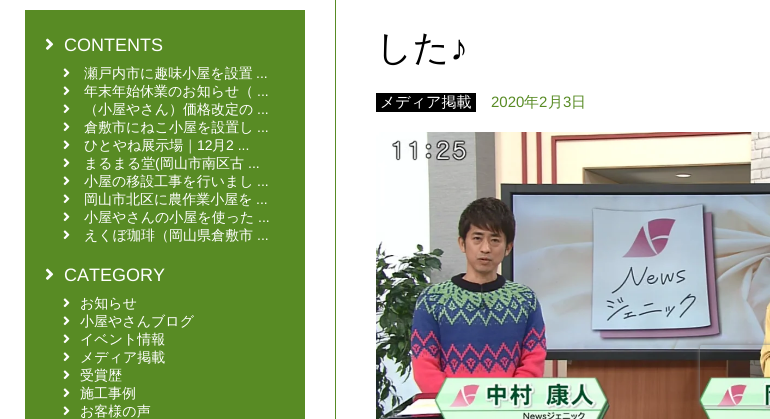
#include <cairo.h>
#include <math.h>
#include <stddef.h>


static void rgb(cairo_t *cr, int r, int g, int b)
{
	cairo_set_source_rgb(cr, r / 255.0, g / 255.0, b / 255.0);
}

static void face(cairo_t *cr, const char *family, double size, int italic, int bold)
{
	cairo_select_font_face(cr, family, italic ? CAIRO_FONT_SLANT_ITALIC : CAIRO_FONT_SLANT_NORMAL,
		bold ? CAIRO_FONT_WEIGHT_BOLD : CAIRO_FONT_WEIGHT_NORMAL);
	cairo_set_font_size(cr, size);
}

static void label(cairo_t *cr, double x, double y, const char *s)
{
	cairo_move_to(cr, x, y);
	cairo_show_text(cr, s);
}

static void rect(cairo_t *cr, double x, double y, double w, double h)
{
	cairo_rectangle(cr, x, y, w, h);
	cairo_fill(cr);
}

static void rrect(cairo_t *cr, double x, double y, double w, double h, double r)
{
	cairo_new_sub_path(cr);
	cairo_arc(cr, x + w - r, y + h - r, r, 0, M_PI / 2);
	cairo_arc(cr, x + r, y + h - r, r, M_PI / 2, M_PI);
	cairo_arc(cr, x + r, y + r, r, M_PI, 1.5 * M_PI);
	cairo_arc(cr, x + w - r, y + r, r, 1.5 * M_PI, 2 * M_PI);
	cairo_close_path(cr);
}

static void soft_shadow(cairo_t *cr, double x, double y, double w, double h, double r, double blur, double alpha)
{
	cairo_push_group_with_content(cr, CAIRO_CONTENT_ALPHA);
	cairo_set_operator(cr, CAIRO_OPERATOR_SOURCE);
	for (int i = 15; i >= -15 && fmin(w, h) + blur * i / 3 > 0; i -= 2) {
		double e = blur * i / 6;
		cairo_set_source_rgba(cr, 0, 0, 0, alpha * erfc((i - 1) / 8.5) / 2);
		rrect(cr, x - e, y - e, w + 2 * e, h + 2 * e, fmax(0, fmin(r + e + blur * .6, fmin(w, h) / 2 + e)));
		cairo_fill(cr);
	}
	cairo_pattern_t *soft = cairo_pop_group(cr);
	cairo_mask(cr, soft);
	cairo_pattern_destroy(soft);
}

static void image(cairo_t *cr, const char *path, double x, double y, double w, double h)
{
	cairo_surface_t *image = cairo_image_surface_create_from_png(path);
	cairo_save(cr);
	cairo_set_source_surface(cr, image, x, y);
	cairo_rectangle(cr, x, y, w, h);
	cairo_fill(cr);
	cairo_restore(cr);
	cairo_surface_destroy(image);
}

static void draw(cairo_t *cr) {
	rgb(cr, 255, 255, 255);
	cairo_paint(cr);
	rgb(cr, 88, 139, 36);
	rect(cr, 25, 10, 280, 409);
	image(cr, "image0.png", 45, 38, 9, 12);
	face(cr, "Liberation Sans", 18, 0, 0);
	rgb(cr, 255, 255, 255);
	label(cr, 64, 51, "CONTENTS");
	image(cr, "image1.png", 63, 68, 7, 10);
	face(cr, "WenQuanYi Zen Hei Medium", 14, 0, 0);
	label(cr, 84, 78, "瀬戸内市に趣味小屋を設置");
	face(cr, "Liberation Sans", 14, 0, 0);
	label(cr, 256, 78, "...");
	image(cr, "image1.png", 63, 86, 7, 10);
	face(cr, "WenQuanYi Zen Hei Medium", 14, 0, 0);
	label(cr, 84, 96, "年末年始休業のお知らせ（");
	face(cr, "Liberation Sans", 14, 0, 0);
	label(cr, 257, 96, "...");
	image(cr, "image1.png", 63, 104, 7, 10);
	face(cr, "WenQuanYi Zen Hei Medium", 14, 0, 0);
	label(cr, 84, 114, "（小屋やさん）価格改定の");
	face(cr, "Liberation Sans", 14, 0, 0);
	label(cr, 257, 114, "...");
	image(cr, "image1.png", 63, 122, 7, 10);
	face(cr, "WenQuanYi Zen Hei Medium", 14, 0, 0);
	label(cr, 84, 132, "倉敷市にねこ小屋を設置し");
	face(cr, "Liberation Sans", 14, 0, 0);
	label(cr, 257, 132, "...");
	image(cr, "image1.png", 63, 140, 7, 10);
	face(cr, "WenQuanYi Zen Hei Medium", 14, 0, 0);
	label(cr, 84, 150, "ひとやね展示場｜");
	face(cr, "Liberation Sans", 14, 0, 0);
	label(cr, 197, 150, "12");
	face(cr, "WenQuanYi Zen Hei Medium", 14, 0, 0);
	label(cr, 212, 150, "月");
	face(cr, "Liberation Sans", 14, 0, 0);
	label(cr, 226, 150, "2 ...");
	image(cr, "image1.png", 63, 158, 7, 10);
	face(cr, "WenQuanYi Zen Hei Medium", 14, 0, 0);
	label(cr, 84, 168, "まるまる堂");
	face(cr, "Liberation Sans", 14, 0, 0);
	label(cr, 155, 168, "(");
	face(cr, "WenQuanYi Zen Hei Medium", 14, 0, 0);
	label(cr, 160, 168, "岡山市南区古");
	face(cr, "Liberation Sans", 14, 0, 0);
	label(cr, 248, 168, "...");
	image(cr, "image1.png", 63, 176, 7, 10);
	face(cr, "WenQuanYi Zen Hei Medium", 14, 0, 0);
	label(cr, 84, 186, "小屋の移設工事を行いまし");
	face(cr, "Liberation Sans", 14, 0, 0);
	label(cr, 257, 186, "...");
	image(cr, "image1.png", 63, 194, 7, 10);
	face(cr, "WenQuanYi Zen Hei Medium", 14, 0, 0);
	label(cr, 84, 204, "岡山市北区に農作業小屋を");
	face(cr, "Liberation Sans", 14, 0, 0);
	label(cr, 256, 204, "...");
	image(cr, "image1.png", 63, 212, 7, 10);
	face(cr, "WenQuanYi Zen Hei Medium", 14, 0, 0);
	label(cr, 84, 222, "小屋やさんの小屋を使った");
	face(cr, "Liberation Sans", 14, 0, 0);
	label(cr, 258, 222, "...");
	image(cr, "image1.png", 63, 230, 7, 10);
	face(cr, "WenQuanYi Zen Hei Medium", 14, 0, 0);
	label(cr, 84, 240, "えくぼ珈琲（岡山県倉敷市");
	face(cr, "Liberation Sans", 14, 0, 0);
	label(cr, 257, 240, "...");
	image(cr, "image0.png", 45, 268, 9, 12);
	face(cr, "Liberation Sans", 18, 0, 0);
	label(cr, 64, 281, "CATEGORY");
	image(cr, "image1.png", 63, 298, 7, 10);
	face(cr, "WenQuanYi Zen Hei Medium", 14, 0, 0);
	label(cr, 80, 308, "お知らせ");
	image(cr, "image1.png", 63, 316, 7, 10);
	label(cr, 80, 326, "小屋やさんブログ");
	image(cr, "image1.png", 63, 334, 7, 10);
	label(cr, 80, 344, "イベント情報");
	image(cr, "image1.png", 63, 352, 7, 10);
	label(cr, 80, 362, "メディア掲載");
	image(cr, "image1.png", 63, 370, 7, 10);
	label(cr, 80, 380, "受賞歴");
	image(cr, "image1.png", 63, 388, 7, 10);
	label(cr, 80, 398, "施工事例");
	image(cr, "image1.png", 63, 406, 7, 10);
	label(cr, 80, 416, "お客様の声");
	cairo_rectangle(cr, 335.5, -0.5, 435, 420);
	rgb(cr, 88, 139, 36);
	cairo_set_line_width(cr, 1);
	cairo_stroke(cr);
	face(cr, "WenQuanYi Zen Hei Medium", 36, 0, 0);
	rgb(cr, 0, 0, 0);
	label(cr, 376, 60, "した");
	face(cr, "Liberation Sans", 36, 0, 0);
	label(cr, 450, 60, "♪");
	rect(cr, 376, 93, 100, 19);
	face(cr, "WenQuanYi Zen Hei Medium", 15, 0, 0);
	rgb(cr, 255, 255, 255);
	label(cr, 380, 107, "メディア掲載");
	face(cr, "Liberation Sans", 15, 0, 0);
	rgb(cr, 88, 139, 36);
	label(cr, 491, 107, "2020");
	face(cr, "WenQuanYi Zen Hei Medium", 15, 0, 0);
	label(cr, 524, 107, "年");
	face(cr, "Liberation Sans", 15, 0, 0);
	label(cr, 539, 107, "2");
	face(cr, "WenQuanYi Zen Hei Medium", 15, 0, 0);
	label(cr, 548, 107, "月");
	face(cr, "Liberation Sans", 15, 0, 0);
	label(cr, 563, 107, "3");
	face(cr, "WenQuanYi Zen Hei Medium", 15, 0, 0);
	label(cr, 571, 107, "日");
	image(cr, "image2.png", 376, 132, 394, 287);
	cairo_save(cr);
	cairo_set_fill_rule(cr, CAIRO_FILL_RULE_EVEN_ODD);
	cairo_new_path(cr);
	cairo_move_to(cr, 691, 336);
	cairo_line_to(cr, 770, 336);
	cairo_line_to(cr, 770, 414);
	cairo_line_to(cr, 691, 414);
	cairo_close_path(cr);
	cairo_move_to(cr, 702, 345);
	cairo_line_to(cr, 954, 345);
	cairo_curve_to(cr, 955, 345, 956, 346, 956, 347);
	cairo_line_to(cr, 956, 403);
	cairo_curve_to(cr, 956, 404, 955, 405, 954, 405);
	cairo_line_to(cr, 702, 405);
	cairo_curve_to(cr, 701, 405, 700, 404, 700, 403);
	cairo_line_to(cr, 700, 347);
	cairo_curve_to(cr, 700, 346, 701, 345, 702, 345);
	cairo_close_path(cr);
	cairo_clip(cr);
	rgb(cr, 128, 128, 128);
	soft_shadow(cr, 700, 345, 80, 60, 2, 2.5, 1);
	cairo_restore(cr);
}

int main(void) {
	cairo_surface_t *surface = cairo_image_surface_create(CAIRO_FORMAT_RGB24, 770, 419);
	cairo_t *cr = cairo_create(surface);
	cairo_font_options_t *options = cairo_font_options_create();
	cairo_font_options_set_hint_metrics(options, CAIRO_HINT_METRICS_OFF);
	cairo_font_options_set_hint_style(options, CAIRO_HINT_STYLE_NONE);
	cairo_set_font_options(cr, options);
	cairo_set_miter_limit(cr, 4);
	draw(cr);
	cairo_surface_write_to_png(surface, "render.png");
	cairo_font_options_destroy(options);
	cairo_destroy(cr);
	cairo_surface_destroy(surface);
	return 0;
}
